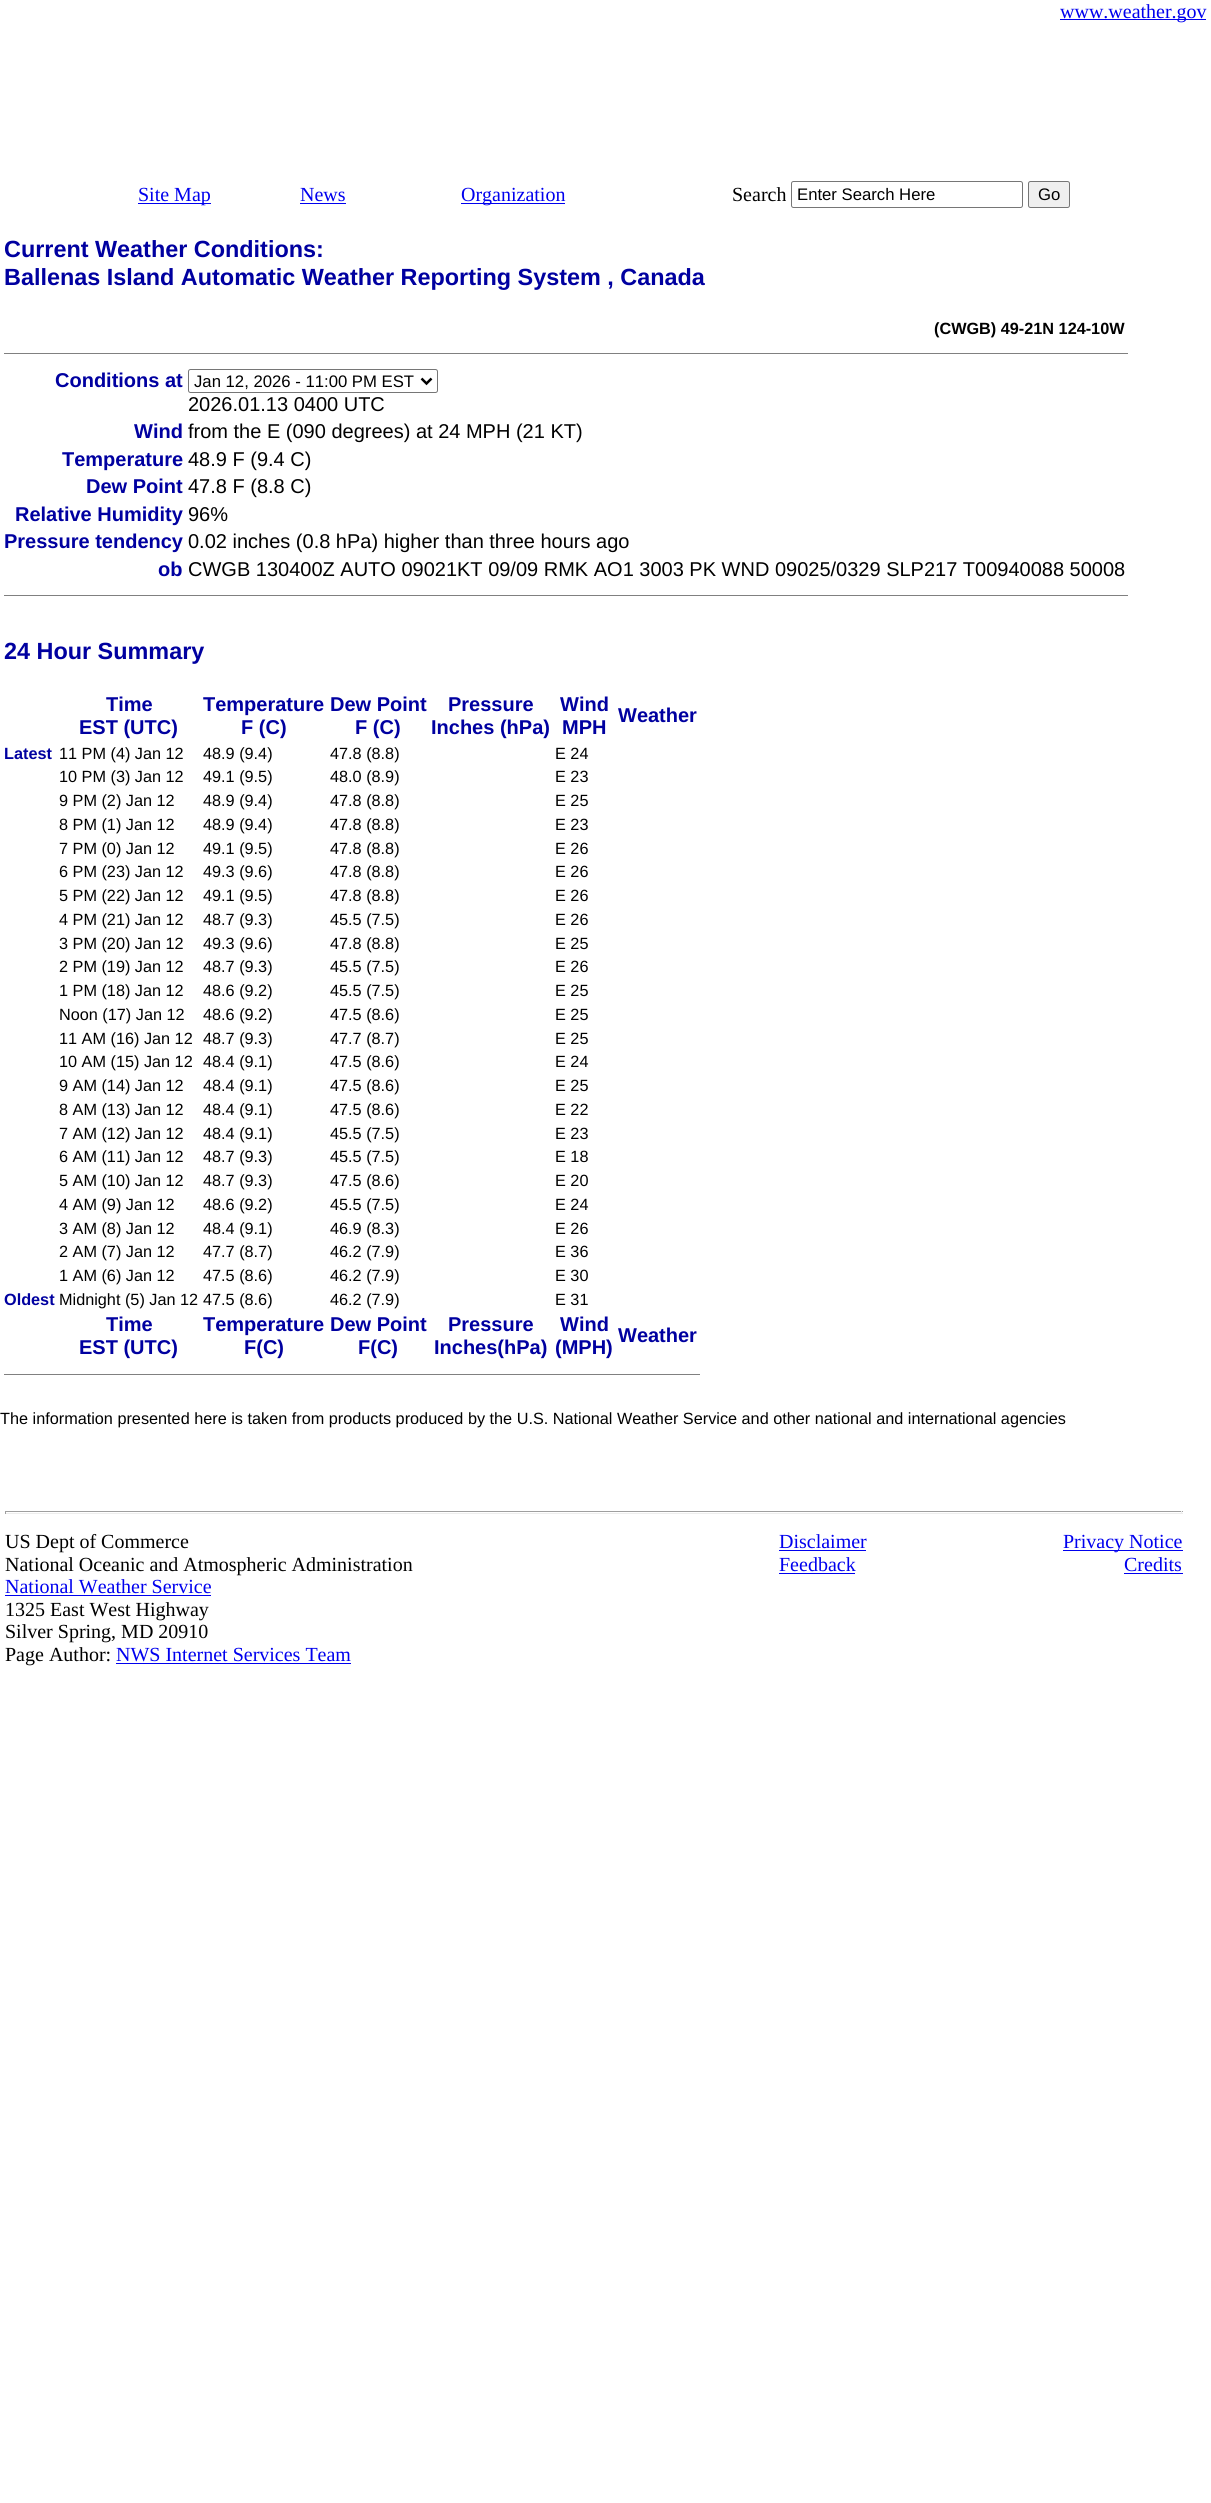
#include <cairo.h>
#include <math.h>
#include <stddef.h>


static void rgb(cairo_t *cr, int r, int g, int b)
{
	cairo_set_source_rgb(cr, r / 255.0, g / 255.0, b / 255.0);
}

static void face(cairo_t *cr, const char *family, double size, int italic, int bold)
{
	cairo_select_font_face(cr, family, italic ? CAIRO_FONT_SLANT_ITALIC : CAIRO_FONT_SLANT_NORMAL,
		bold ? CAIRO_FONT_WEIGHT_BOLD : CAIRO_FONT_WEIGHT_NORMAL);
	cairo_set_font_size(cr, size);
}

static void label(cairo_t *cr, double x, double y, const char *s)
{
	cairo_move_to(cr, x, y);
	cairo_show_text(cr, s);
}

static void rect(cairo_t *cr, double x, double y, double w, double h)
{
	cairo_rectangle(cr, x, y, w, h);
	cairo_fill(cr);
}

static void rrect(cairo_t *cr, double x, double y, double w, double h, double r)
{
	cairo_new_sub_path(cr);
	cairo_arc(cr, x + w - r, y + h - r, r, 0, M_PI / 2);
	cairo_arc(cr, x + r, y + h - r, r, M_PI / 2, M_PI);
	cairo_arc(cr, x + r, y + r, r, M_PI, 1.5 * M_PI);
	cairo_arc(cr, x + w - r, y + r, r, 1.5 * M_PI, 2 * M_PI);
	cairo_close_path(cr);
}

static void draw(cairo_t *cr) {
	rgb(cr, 255, 255, 255);
	cairo_paint(cr);
	rgb(cr, 0, 0, 238);
	rect(cr, 1060, 19, 146, 1);
	face(cr, "Liberation Serif", 20, 0, 0);
	label(cr, 1060, 18, "www.weather.gov");
	rect(cr, 138, 203, 73, 1);
	label(cr, 138, 201, "Site Map");
	label(cr, 300, 201, "News");
	rect(cr, 300, 203, 46, 1);
	rect(cr, 461, 203, 104, 1);
	label(cr, 461, 201, "Organization");
	rgb(cr, 0, 0, 0);
	label(cr, 732, 201, "Search");
	rrect(cr, 791.5, 181.5, 231, 26, 2);
	rgb(cr, 118, 118, 118);
	cairo_set_line_width(cr, 1);
	cairo_stroke(cr);
	face(cr, "Liberation Sans", 16.7, 0, 0);
	rgb(cr, 0, 0, 0);
	label(cr, 797, 200, "Enter Search Here");
	rgb(cr, 239, 239, 239);
	rrect(cr, 1028.5, 181.5, 41, 26, 2);
	cairo_fill_preserve(cr);
	rgb(cr, 118, 118, 118);
	cairo_stroke(cr);
	rgb(cr, 0, 0, 0);
	label(cr, 1038, 200, "Go");
	face(cr, "Liberation Sans", 23.4, 0, 1);
	rgb(cr, 0, 0, 160);
	label(cr, 4, 257, "Current Weather Conditions:");
	label(cr, 4, 285, "Ballenas Island Automatic Weather Reporting System , Canada");
	face(cr, "Liberation Sans", 16.25, 0, 1);
	rgb(cr, 0, 0, 0);
	label(cr, 934, 334, "(CWGB) 49-21N 124-10W");
	rgb(cr, 128, 128, 128);
	rect(cr, 4, 353, 1124, 1);
	face(cr, "Liberation Sans", 20, 0, 1);
	rgb(cr, 0, 0, 160);
	label(cr, 55, 387, "Conditions at");
	rrect(cr, 188.5, 369.5, 249, 23, 2);
	rgb(cr, 118, 118, 118);
	cairo_stroke(cr);
	cairo_new_path(cr);
	cairo_move_to(cr, 421.5, 378.5);
	cairo_line_to(cr, 426.5, 383.5);
	cairo_line_to(cr, 431.5, 378.5);
	rgb(cr, 0, 0, 0);
	cairo_set_line_width(cr, 2.5);
	cairo_stroke(cr);
	face(cr, "Liberation Sans", 16.7, 0, 0);
	label(cr, 194, 387, "Jan 12, 2026 - 11:00 PM EST");
	face(cr, "Liberation Sans", 20, 0, 0);
	label(cr, 188, 411, "2026.01.13 0400 UTC");
	face(cr, "Liberation Sans", 20, 0, 1);
	rgb(cr, 0, 0, 160);
	label(cr, 134, 438, "Wind");
	face(cr, "Liberation Sans", 20, 0, 0);
	rgb(cr, 0, 0, 0);
	label(cr, 188, 438, "from the E (090 degrees) at 24 MPH (21 KT)");
	face(cr, "Liberation Sans", 20, 0, 1);
	rgb(cr, 0, 0, 160);
	label(cr, 62, 466, "Temperature");
	face(cr, "Liberation Sans", 20, 0, 0);
	rgb(cr, 0, 0, 0);
	label(cr, 188, 466, "48.9 F (9.4 C)");
	face(cr, "Liberation Sans", 20, 0, 1);
	rgb(cr, 0, 0, 160);
	label(cr, 86, 493, "Dew Point");
	face(cr, "Liberation Sans", 20, 0, 0);
	rgb(cr, 0, 0, 0);
	label(cr, 188, 493, "47.8 F (8.8 C)");
	face(cr, "Liberation Sans", 20, 0, 1);
	rgb(cr, 0, 0, 160);
	label(cr, 15, 521, "Relative Humidity");
	face(cr, "Liberation Sans", 20, 0, 0);
	rgb(cr, 0, 0, 0);
	label(cr, 188, 521, "96%");
	face(cr, "Liberation Sans", 20, 0, 1);
	rgb(cr, 0, 0, 160);
	label(cr, 4, 548, "Pressure tendency");
	face(cr, "Liberation Sans", 20, 0, 0);
	rgb(cr, 0, 0, 0);
	label(cr, 188, 548, "0.02 inches (0.8 hPa) higher than three hours ago");
	face(cr, "Liberation Sans", 20, 0, 1);
	rgb(cr, 0, 0, 160);
	label(cr, 158, 576, "ob");
	face(cr, "Liberation Sans", 20, 0, 0);
	rgb(cr, 0, 0, 0);
	label(cr, 188, 576, "CWGB 130400Z AUTO 09021KT 09/09 RMK AO1 3003 PK WND 09025/0329 SLP217 T00940088 50008");
	rgb(cr, 128, 128, 128);
	rect(cr, 4, 595, 1124, 1);
	face(cr, "Liberation Sans", 23.4, 0, 1);
	rgb(cr, 0, 0, 160);
	label(cr, 4, 659, "24 Hour Summary");
	face(cr, "Liberation Sans", 20, 0, 1);
	label(cr, 106, 711, "Time");
	label(cr, 79, 734, "EST (UTC)");
	label(cr, 203, 711, "Temperature");
	label(cr, 241, 734, "F (C)");
	label(cr, 330, 711, "Dew Point");
	label(cr, 355, 734, "F (C)");
	label(cr, 448, 711, "Pressure");
	label(cr, 431, 734, "Inches (hPa)");
	label(cr, 560, 711, "Wind");
	label(cr, 562, 734, "MPH");
	label(cr, 618, 722, "Weather");
	face(cr, "Liberation Sans", 16.25, 0, 1);
	label(cr, 4, 759, "Latest");
	face(cr, "Liberation Sans", 16.25, 0, 0);
	rgb(cr, 0, 0, 0);
	label(cr, 59, 759, "11 PM (4) Jan 12");
	label(cr, 203, 759, "48.9 (9.4)");
	label(cr, 330, 759, "47.8 (8.8)");
	label(cr, 555, 759, "E 24");
	label(cr, 59, 782, "10 PM (3) Jan 12");
	label(cr, 203, 782, "49.1 (9.5)");
	label(cr, 330, 782, "48.0 (8.9)");
	label(cr, 555, 782, "E 23");
	label(cr, 59, 806, "9 PM (2) Jan 12");
	label(cr, 203, 806, "48.9 (9.4)");
	label(cr, 330, 806, "47.8 (8.8)");
	label(cr, 555, 806, "E 25");
	label(cr, 59, 830, "8 PM (1) Jan 12");
	label(cr, 203, 830, "48.9 (9.4)");
	label(cr, 330, 830, "47.8 (8.8)");
	label(cr, 555, 830, "E 23");
	label(cr, 59, 854, "7 PM (0) Jan 12");
	label(cr, 203, 854, "49.1 (9.5)");
	label(cr, 330, 854, "47.8 (8.8)");
	label(cr, 555, 854, "E 26");
	label(cr, 59, 877, "6 PM (23) Jan 12");
	label(cr, 203, 877, "49.3 (9.6)");
	label(cr, 330, 877, "47.8 (8.8)");
	label(cr, 555, 877, "E 26");
	label(cr, 59, 901, "5 PM (22) Jan 12");
	label(cr, 203, 901, "49.1 (9.5)");
	label(cr, 330, 901, "47.8 (8.8)");
	label(cr, 555, 901, "E 26");
	label(cr, 59, 925, "4 PM (21) Jan 12");
	label(cr, 203, 925, "48.7 (9.3)");
	label(cr, 330, 925, "45.5 (7.5)");
	label(cr, 555, 925, "E 26");
	label(cr, 59, 949, "3 PM (20) Jan 12");
	label(cr, 203, 949, "49.3 (9.6)");
	label(cr, 330, 949, "47.8 (8.8)");
	label(cr, 555, 949, "E 25");
	label(cr, 59, 972, "2 PM (19) Jan 12");
	label(cr, 203, 972, "48.7 (9.3)");
	label(cr, 330, 972, "45.5 (7.5)");
	label(cr, 555, 972, "E 26");
	label(cr, 59, 996, "1 PM (18) Jan 12");
	label(cr, 203, 996, "48.6 (9.2)");
	label(cr, 330, 996, "45.5 (7.5)");
	label(cr, 555, 996, "E 25");
	label(cr, 59, 1020, "Noon (17) Jan 12");
	label(cr, 203, 1020, "48.6 (9.2)");
	label(cr, 330, 1020, "47.5 (8.6)");
	label(cr, 555, 1020, "E 25");
	label(cr, 59, 1044, "11 AM (16) Jan 12");
	label(cr, 203, 1044, "48.7 (9.3)");
	label(cr, 330, 1044, "47.7 (8.7)");
	label(cr, 555, 1044, "E 25");
	label(cr, 59, 1067, "10 AM (15) Jan 12");
	label(cr, 203, 1067, "48.4 (9.1)");
	label(cr, 330, 1067, "47.5 (8.6)");
	label(cr, 555, 1067, "E 24");
	label(cr, 59, 1091, "9 AM (14) Jan 12");
	label(cr, 203, 1091, "48.4 (9.1)");
	label(cr, 330, 1091, "47.5 (8.6)");
	label(cr, 555, 1091, "E 25");
	label(cr, 59, 1115, "8 AM (13) Jan 12");
	label(cr, 203, 1115, "48.4 (9.1)");
	label(cr, 330, 1115, "47.5 (8.6)");
	label(cr, 555, 1115, "E 22");
	label(cr, 59, 1139, "7 AM (12) Jan 12");
	label(cr, 203, 1139, "48.4 (9.1)");
	label(cr, 330, 1139, "45.5 (7.5)");
	label(cr, 555, 1139, "E 23");
	label(cr, 59, 1162, "6 AM (11) Jan 12");
	label(cr, 203, 1162, "48.7 (9.3)");
	label(cr, 330, 1162, "45.5 (7.5)");
	label(cr, 555, 1162, "E 18");
	label(cr, 59, 1186, "5 AM (10) Jan 12");
	label(cr, 203, 1186, "48.7 (9.3)");
	label(cr, 330, 1186, "47.5 (8.6)");
	label(cr, 555, 1186, "E 20");
	label(cr, 59, 1210, "4 AM (9) Jan 12");
	label(cr, 203, 1210, "48.6 (9.2)");
	label(cr, 330, 1210, "45.5 (7.5)");
	label(cr, 555, 1210, "E 24");
	label(cr, 59, 1234, "3 AM (8) Jan 12");
	label(cr, 203, 1234, "48.4 (9.1)");
	label(cr, 330, 1234, "46.9 (8.3)");
	label(cr, 555, 1234, "E 26");
	label(cr, 59, 1257, "2 AM (7) Jan 12");
	label(cr, 203, 1257, "47.7 (8.7)");
	label(cr, 330, 1257, "46.2 (7.9)");
	label(cr, 555, 1257, "E 36");
	label(cr, 59, 1281, "1 AM (6) Jan 12");
	label(cr, 203, 1281, "47.5 (8.6)");
	label(cr, 330, 1281, "46.2 (7.9)");
	label(cr, 555, 1281, "E 30");
	face(cr, "Liberation Sans", 16.25, 0, 1);
	rgb(cr, 0, 0, 160);
	label(cr, 4, 1305, "Oldest");
	face(cr, "Liberation Sans", 16.25, 0, 0);
	rgb(cr, 0, 0, 0);
	label(cr, 59, 1305, "Midnight (5) Jan 12");
	label(cr, 203, 1305, "47.5 (8.6)");
	label(cr, 330, 1305, "46.2 (7.9)");
	label(cr, 555, 1305, "E 31");
	face(cr, "Liberation Sans", 20, 0, 1);
	rgb(cr, 0, 0, 160);
	label(cr, 106, 1331, "Time");
	label(cr, 79, 1354, "EST (UTC)");
	label(cr, 203, 1331, "Temperature");
	label(cr, 244, 1354, "F(C)");
	label(cr, 330, 1331, "Dew Point");
	label(cr, 358, 1354, "F(C)");
	label(cr, 448, 1331, "Pressure");
	label(cr, 434, 1354, "Inches(hPa)");
	label(cr, 560, 1331, "Wind");
	label(cr, 555, 1354, "(MPH)");
	label(cr, 618, 1342, "Weather");
	rgb(cr, 128, 128, 128);
	rect(cr, 4, 1374, 696, 1);
	face(cr, "Liberation Sans", 16.25, 0, 0);
	rgb(cr, 0, 0, 0);
	label(cr, 0, 1424, "The information presented here is taken from products produced by the U.S. National Weather Service and other national and international agencies");
	rgb(cr, 159, 159, 159);
	rect(cr, 5, 1511, 1178, 1);
	rgb(cr, 238, 238, 238);
	rect(cr, 1181, 1511, 1, 3);
	rect(cr, 5, 1513, 1178, 1);
	rgb(cr, 159, 159, 159);
	rect(cr, 5, 1511, 1, 3);
	face(cr, "Liberation Serif", 20, 0, 0);
	rgb(cr, 0, 0, 0);
	label(cr, 5, 1548, "US Dept of Commerce");
	label(cr, 5, 1571, "National Oceanic and Atmospheric Administration");
	rgb(cr, 0, 0, 238);
	label(cr, 5, 1593, "National Weather Service");
	rect(cr, 5, 1595, 206, 1);
	rgb(cr, 0, 0, 0);
	label(cr, 5, 1616, "1325 East West Highway");
	label(cr, 5, 1638, "Silver Spring, MD 20910");
	label(cr, 5, 1661, "Page Author:");
	rgb(cr, 0, 0, 238);
	label(cr, 116, 1661, "NWS Internet Services Team");
	rect(cr, 116, 1663, 235, 1);
	label(cr, 779, 1548, "Disclaimer");
	rect(cr, 779, 1550, 87, 1);
	label(cr, 779, 1571, "Feedback");
	rect(cr, 779, 1573, 76, 1);
	rect(cr, 1063, 1550, 120, 1);
	label(cr, 1063, 1548, "Privacy Notice");
	label(cr, 1124, 1571, "Credits");
	rect(cr, 1124, 1573, 59, 1);
}

int main(void) {
	cairo_surface_t *surface = cairo_image_surface_create(CAIRO_FORMAT_RGB24, 1211, 2503);
	cairo_t *cr = cairo_create(surface);
	cairo_font_options_t *options = cairo_font_options_create();
	cairo_font_options_set_hint_metrics(options, CAIRO_HINT_METRICS_OFF);
	cairo_font_options_set_hint_style(options, CAIRO_HINT_STYLE_NONE);
	cairo_set_font_options(cr, options);
	cairo_set_miter_limit(cr, 4);
	draw(cr);
	cairo_surface_write_to_png(surface, "render.png");
	cairo_font_options_destroy(options);
	cairo_destroy(cr);
	cairo_surface_destroy(surface);
	return 0;
}
